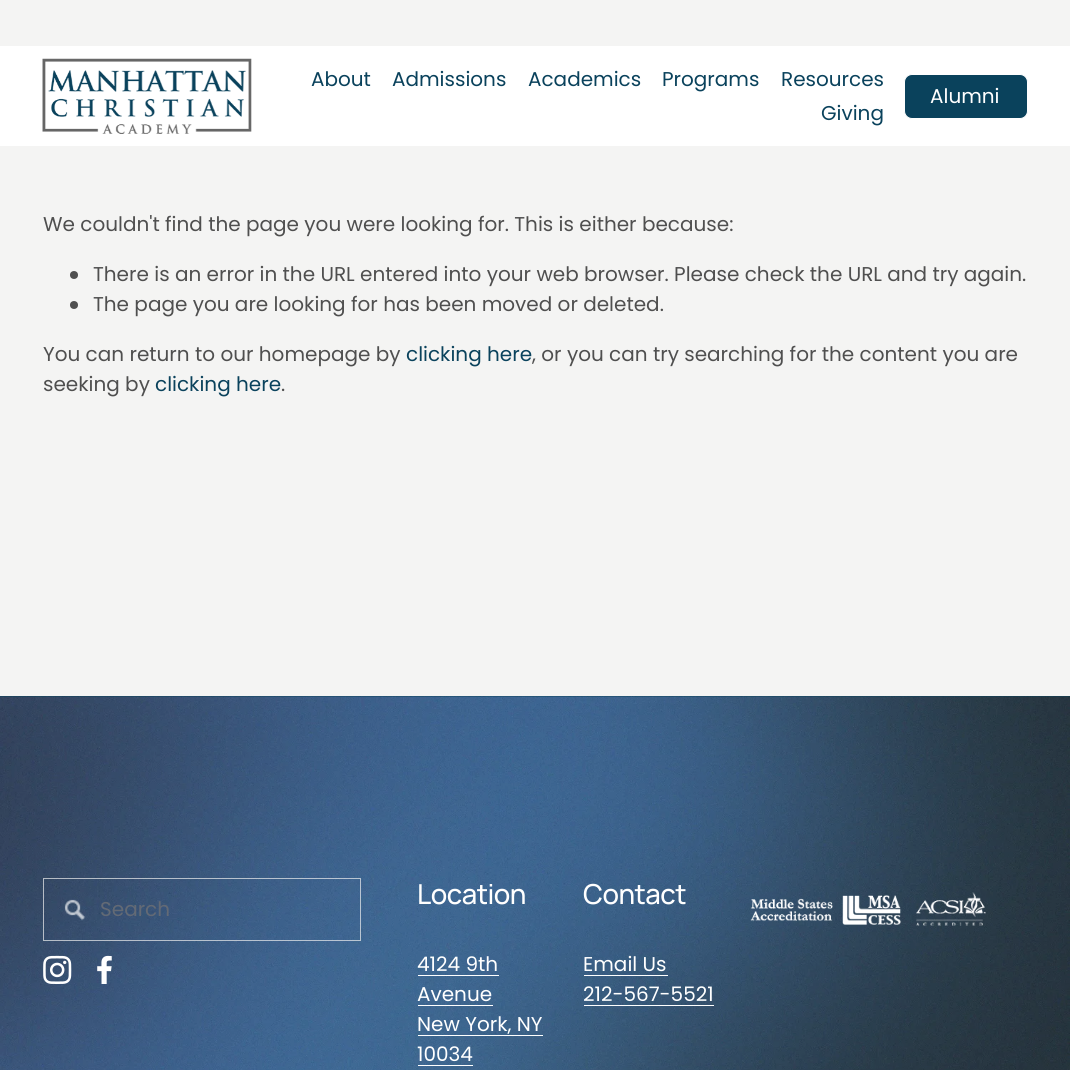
#include <cairo.h>
#include <math.h>
#include <stddef.h>


static void rgb(cairo_t *cr, int r, int g, int b)
{
	cairo_set_source_rgb(cr, r / 255.0, g / 255.0, b / 255.0);
}

static void face(cairo_t *cr, const char *family, double size, int italic, int bold)
{
	cairo_select_font_face(cr, family, italic ? CAIRO_FONT_SLANT_ITALIC : CAIRO_FONT_SLANT_NORMAL,
		bold ? CAIRO_FONT_WEIGHT_BOLD : CAIRO_FONT_WEIGHT_NORMAL);
	cairo_set_font_size(cr, size);
}

static void label(cairo_t *cr, double x, double y, const char *s)
{
	cairo_move_to(cr, x, y);
	cairo_show_text(cr, s);
}

static void tracked(cairo_t *cr, double x, double y, const char *s, double letter, double word)
{
	cairo_move_to(cr, x, y);
	while (*s) {
		char ch[5] = {0};
		int n = 0;
		do ch[n++] = *s++; while ((*s & 0xC0) == 0x80);
		cairo_show_text(cr, ch);
		cairo_rel_move_to(cr, letter + word * (*ch == ' '), 0);
	}
}

static void rect(cairo_t *cr, double x, double y, double w, double h)
{
	cairo_rectangle(cr, x, y, w, h);
	cairo_fill(cr);
}

static void rrect(cairo_t *cr, double x, double y, double w, double h, double r)
{
	cairo_new_sub_path(cr);
	cairo_arc(cr, x + w - r, y + h - r, r, 0, M_PI / 2);
	cairo_arc(cr, x + r, y + h - r, r, M_PI / 2, M_PI);
	cairo_arc(cr, x + r, y + r, r, M_PI, 1.5 * M_PI);
	cairo_arc(cr, x + w - r, y + r, r, 1.5 * M_PI, 2 * M_PI);
	cairo_close_path(cr);
}

static void image(cairo_t *cr, const char *path, double x, double y, double w, double h)
{
	cairo_surface_t *image = cairo_image_surface_create_from_png(path);
	cairo_save(cr);
	cairo_set_source_surface(cr, image, x, y);
	cairo_rectangle(cr, x, y, w, h);
	cairo_fill(cr);
	cairo_restore(cr);
	cairo_surface_destroy(image);
}

static void draw(cairo_t *cr) {
	rgb(cr, 244, 244, 243);
	cairo_paint(cr);
	rgb(cr, 255, 255, 255);
	rect(cr, 0, 46, 1070, 100);
	image(cr, "image0.png", 42, 58, 210, 76);
	face(cr, "Poppins", 20, 0, 0);
	rgb(cr, 10, 66, 92);
	label(cr, 311, 86, "About");
	label(cr, 392, 86, "Admissions");
	label(cr, 528, 86, "Academics");
	label(cr, 662, 86, "Programs");
	label(cr, 781, 86, "Resources");
	label(cr, 821, 120, "Giving");
	rrect(cr, 904.5, 74.5, 123, 44, 7.5);
	cairo_fill_preserve(cr);
	rgb(cr, 255, 255, 255);
	cairo_set_line_width(cr, 1);
	cairo_stroke(cr);
	label(cr, 930, 103, "Alumni");
	rgb(cr, 79, 79, 79);
	label(cr, 43, 231, "We couldn't find the page you were looking for. This is either because:");
	cairo_new_path(cr);
	cairo_arc(cr, 74, 275, 4, 0, 2 * M_PI);
	cairo_fill(cr);
	label(cr, 93, 281, "There is an error in the URL entered into your web browser. Please check the URL and try again.");
	cairo_new_path(cr);
	cairo_arc(cr, 74, 305, 4, 0, 2 * M_PI);
	cairo_fill(cr);
	label(cr, 93, 311, "The page you are looking for has been moved or deleted.");
	label(cr, 43, 361, "You can return to our homepage by");
	rgb(cr, 10, 66, 92);
	label(cr, 406, 361, "clicking here");
	rgb(cr, 79, 79, 79);
	label(cr, 532, 361, ", or you can try searching for the content you are");
	label(cr, 43, 391, "seeking by");
	rgb(cr, 10, 66, 92);
	label(cr, 155, 391, "clicking here");
	rgb(cr, 79, 79, 79);
	label(cr, 281, 391, ".");
	rgb(cr, 10, 66, 92);
	rect(cr, 0, 696, 1070, 1);
	image(cr, "image1.png", 0, 696, 1070, 374);
	image(cr, "image2.png", 64, 899, 22, 22);
	cairo_rectangle(cr, 43.5, 878.5, 317, 62);
	cairo_set_source_rgba(cr, 0.933, 0.933, 0.933, 0.7);
	cairo_stroke(cr);
	rgb(cr, 99, 106, 117);
	label(cr, 100, 916, "Search");
	face(cr, "Manrope Medium", 27.5, 0, 0);
	rgb(cr, 255, 255, 255);
	tracked(cr, 417, 904, "Location", -0.5, 0);
	face(cr, "Poppins", 20, 0, 0);
	label(cr, 417, 971, "4124 9th");
	rect(cr, 418, 975, 81, 1);
	label(cr, 417, 1001, "Avenue");
	rect(cr, 418, 1005, 75, 1);
	label(cr, 417, 1031, "New York, NY");
	rect(cr, 418, 1035, 125, 1);
	label(cr, 417, 1061, "10034");
	rect(cr, 418, 1065, 55, 1);
	face(cr, "Manrope Medium", 27.5, 0, 0);
	tracked(cr, 583, 904, "Contact", -0.5, 0);
	face(cr, "Poppins", 20, 0, 0);
	label(cr, 583, 971, "Email Us");
	rect(cr, 584, 975, 84, 1);
	label(cr, 583, 1001, "212-567-5521");
	rect(cr, 584, 1005, 130, 1);
	image(cr, "image3.png", 750, 895, 151, 30);
	image(cr, "image4.png", 916, 892, 70, 34);
	image(cr, "image5.png", 43, 955, 29, 29);
	image(cr, "image6.png", 97, 955, 15, 29);
}

int main(void) {
	cairo_surface_t *surface = cairo_image_surface_create(CAIRO_FORMAT_RGB24, 1070, 1070);
	cairo_t *cr = cairo_create(surface);
	cairo_font_options_t *options = cairo_font_options_create();
	cairo_font_options_set_hint_metrics(options, CAIRO_HINT_METRICS_OFF);
	cairo_font_options_set_hint_style(options, CAIRO_HINT_STYLE_NONE);
	cairo_set_font_options(cr, options);
	cairo_set_miter_limit(cr, 4);
	draw(cr);
	cairo_surface_write_to_png(surface, "render.png");
	cairo_font_options_destroy(options);
	cairo_destroy(cr);
	cairo_surface_destroy(surface);
	return 0;
}
